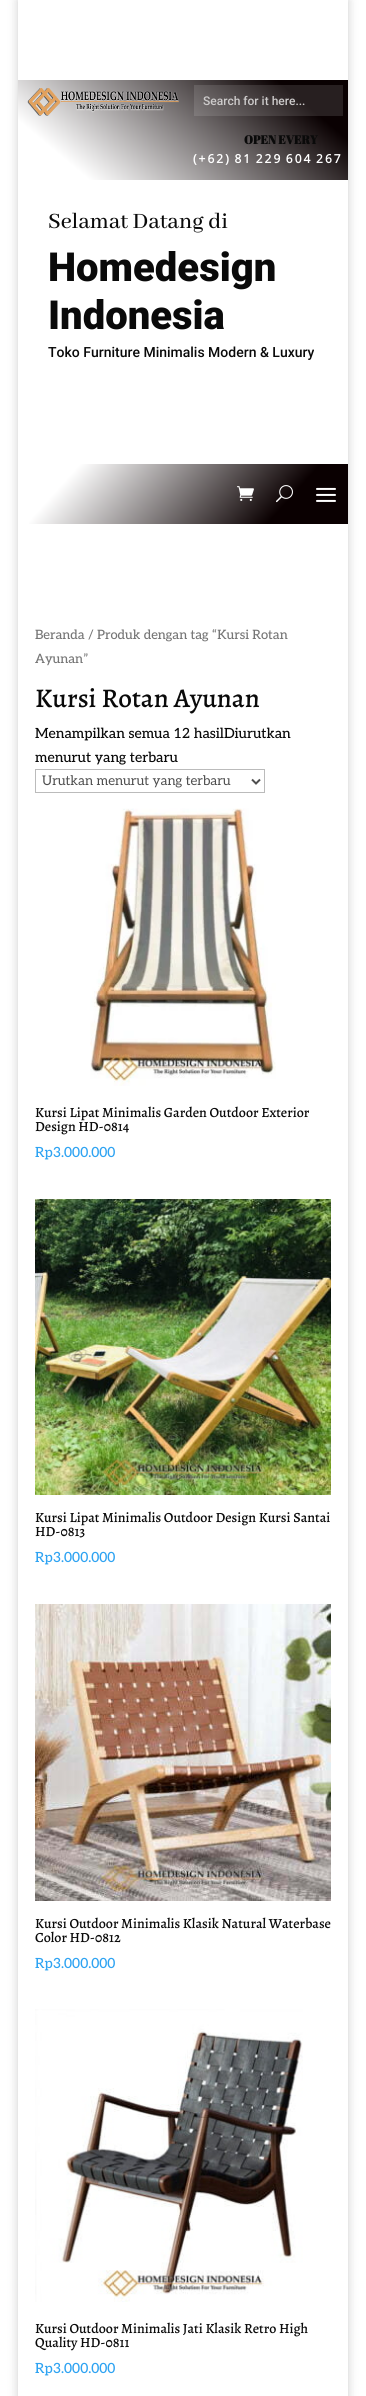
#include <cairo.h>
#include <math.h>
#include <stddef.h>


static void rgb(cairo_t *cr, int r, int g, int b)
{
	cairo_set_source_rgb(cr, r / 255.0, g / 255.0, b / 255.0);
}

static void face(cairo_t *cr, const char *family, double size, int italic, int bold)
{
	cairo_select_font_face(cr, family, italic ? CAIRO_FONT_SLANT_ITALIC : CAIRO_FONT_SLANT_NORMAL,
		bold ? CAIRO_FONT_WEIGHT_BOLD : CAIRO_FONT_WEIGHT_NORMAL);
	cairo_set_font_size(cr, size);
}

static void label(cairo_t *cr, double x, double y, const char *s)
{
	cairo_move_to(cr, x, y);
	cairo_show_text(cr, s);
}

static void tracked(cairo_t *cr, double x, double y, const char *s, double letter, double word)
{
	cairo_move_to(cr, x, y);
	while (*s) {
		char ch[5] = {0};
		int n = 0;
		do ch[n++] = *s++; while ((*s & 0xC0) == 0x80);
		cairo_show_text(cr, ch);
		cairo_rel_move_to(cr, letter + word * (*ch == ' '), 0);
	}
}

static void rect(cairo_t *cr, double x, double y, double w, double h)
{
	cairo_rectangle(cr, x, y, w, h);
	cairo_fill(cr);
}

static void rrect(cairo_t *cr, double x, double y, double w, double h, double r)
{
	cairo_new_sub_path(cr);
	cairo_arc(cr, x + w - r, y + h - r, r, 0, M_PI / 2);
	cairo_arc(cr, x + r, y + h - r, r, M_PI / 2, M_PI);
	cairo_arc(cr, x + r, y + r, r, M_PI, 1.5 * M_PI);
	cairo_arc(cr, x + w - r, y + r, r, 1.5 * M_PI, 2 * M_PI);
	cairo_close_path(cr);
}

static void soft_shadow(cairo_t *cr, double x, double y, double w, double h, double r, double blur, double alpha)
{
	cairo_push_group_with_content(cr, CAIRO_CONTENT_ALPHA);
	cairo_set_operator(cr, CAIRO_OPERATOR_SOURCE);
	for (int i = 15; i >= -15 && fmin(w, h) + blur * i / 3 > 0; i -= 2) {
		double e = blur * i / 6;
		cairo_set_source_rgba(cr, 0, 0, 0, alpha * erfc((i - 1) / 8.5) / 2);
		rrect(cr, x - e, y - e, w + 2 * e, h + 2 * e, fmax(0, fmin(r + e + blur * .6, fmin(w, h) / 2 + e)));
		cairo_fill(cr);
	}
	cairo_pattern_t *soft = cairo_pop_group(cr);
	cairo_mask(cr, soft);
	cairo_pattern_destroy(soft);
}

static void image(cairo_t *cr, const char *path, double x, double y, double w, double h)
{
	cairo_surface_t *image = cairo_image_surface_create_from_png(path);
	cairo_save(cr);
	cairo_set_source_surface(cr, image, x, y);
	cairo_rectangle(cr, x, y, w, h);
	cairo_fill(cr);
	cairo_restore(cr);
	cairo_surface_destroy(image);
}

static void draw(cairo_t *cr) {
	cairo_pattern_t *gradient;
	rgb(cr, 255, 255, 255);
	cairo_paint(cr);
	cairo_save(cr);
	cairo_set_fill_rule(cr, CAIRO_FILL_RULE_EVEN_ODD);
	cairo_new_path(cr);
	cairo_move_to(cr, 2, 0);
	cairo_line_to(cr, 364, 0);
	cairo_line_to(cr, 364, 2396);
	cairo_line_to(cr, 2, 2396);
	cairo_close_path(cr);
	cairo_move_to(cr, 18, 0);
	cairo_line_to(cr, 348, 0);
	cairo_line_to(cr, 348, 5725);
	cairo_line_to(cr, 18, 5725);
	cairo_close_path(cr);
	cairo_clip(cr);
	rgb(cr, 0, 0, 0);
	soft_shadow(cr, 18, 0, 330, 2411, 0, 5, 0.2);
	cairo_restore(cr);
	gradient = cairo_pattern_create_linear(276, 19, 90, 241);
	cairo_pattern_add_color_stop_rgba(gradient, 0.16, 0.039, 0.004, 0.008, 1);
	cairo_pattern_add_color_stop_rgba(gradient, 0.84, 1, 1, 1, 1);
	cairo_set_source(cr, gradient);
	cairo_pattern_destroy(gradient);
	rect(cr, 18, 80, 330, 100);
	gradient = cairo_pattern_create_linear(276, 19, 90, 241);
	cairo_pattern_add_color_stop_rgba(gradient, 0.16, 0.153, 0.122, 0.125, 1);
	cairo_pattern_add_color_stop_rgba(gradient, 0.84, 1, 1, 1, 1);
	cairo_set_source(cr, gradient);
	cairo_pattern_destroy(gradient);
	rect(cr, 194, 85, 149, 31);
	image(cr, "image0.png", 27, 88, 152, 28);
	face(cr, "Roboto Medium", 12, 0, 0);
	rgb(cr, 205, 203, 203);
	label(cr, 203, 105, "Search for it here...");
	face(cr, "Abril Fatface", 12, 0, 1);
	rgb(cr, 10, 10, 10);
	label(cr, 244, 144, "OPEN EVERY");
	face(cr, "Noto Sans Indic Siyaq Numbers", 12, 0, 1);
	rgb(cr, 255, 255, 255);
	tracked(cr, 193, 163, "(+62) 81 229 604 267", 2, 0);
	face(cr, "Abhaya Libre Medium", 24, 0, 0);
	rgb(cr, 10, 10, 10);
	label(cr, 48, 228, "Selamat Datang di");
	face(cr, "Roboto Black", 40, 0, 0);
	label(cr, 48, 281, "Homedesign");
	label(cr, 48, 329, "Indonesia");
	face(cr, "Roboto Medium", 14, 0, 0);
	label(cr, 48, 357, "Toko Furniture Minimalis Modern & Luxury");
	gradient = cairo_pattern_create_linear(289, 589, 77, 399);
	cairo_pattern_add_color_stop_rgba(gradient, 0.21, 0.039, 0, 0.004, 1);
	cairo_pattern_add_color_stop_rgba(gradient, 0.84, 1, 1, 1, 1);
	cairo_set_source(cr, gradient);
	cairo_pattern_destroy(gradient);
	rect(cr, 29, 464, 319, 60);
	image(cr, "image1.png", 237, 486, 17, 15);
	image(cr, "image2.png", 276, 485, 17, 18);
	image(cr, "image3.png", 316, 487, 20, 15);
	face(cr, "Aleo Medium", 12.9, 0, 0);
	rgb(cr, 118, 118, 118);
	label(cr, 35, 639, "Beranda / Produk dengan tag “Kursi Rotan");
	label(cr, 35, 663, "Ayunan”");
	face(cr, "Alegreya Medium", 27, 0, 0);
	rgb(cr, 10, 10, 10);
	label(cr, 35, 707, "Kursi Rotan Ayunan");
	face(cr, "Aleo Medium", 14, 0, 0);
	label(cr, 35, 738, "Menampilkan semua 12 hasilDiurutkan");
	label(cr, 35, 762, "menurut yang terbaru");
	cairo_rectangle(cr, 35.5, 769.5, 229, 23);
	rgb(cr, 187, 187, 187);
	cairo_set_line_width(cr, 1);
	cairo_stroke(cr);
	cairo_new_path(cr);
	cairo_move_to(cr, 252, 779.5);
	cairo_line_to(cr, 256, 783.5);
	cairo_line_to(cr, 260, 779.5);
	rgb(cr, 78, 78, 78);
	cairo_set_line_width(cr, 2);
	cairo_stroke(cr);
	face(cr, "Aleo", 13.3, 0, 0);
	label(cr, 42, 785, "Urutkan menurut yang terbaru");
	image(cr, "image4.png", 90, 808, 186, 278);
	face(cr, "Alegreya Medium", 14, 0, 0);
	rgb(cr, 10, 10, 10);
	label(cr, 35, 1117, "Kursi Lipat Minimalis Garden Outdoor Exterior");
	label(cr, 35, 1131, "Design HD-0814");
	face(cr, "Aleo Medium", 14, 0, 0);
	rgb(cr, 46, 163, 242);
	label(cr, 35, 1157, "Rp3.000.000");
	image(cr, "image5.png", 35, 1199, 296, 296);
	face(cr, "Alegreya Medium", 14, 0, 0);
	rgb(cr, 10, 10, 10);
	label(cr, 35, 1522, "Kursi Lipat Minimalis Outdoor Design Kursi Santai");
	label(cr, 35, 1536, "HD-0813");
	face(cr, "Aleo Medium", 14, 0, 0);
	rgb(cr, 46, 163, 242);
	label(cr, 35, 1562, "Rp3.000.000");
	image(cr, "image6.png", 35, 1604, 296, 297);
	face(cr, "Alegreya Medium", 14, 0, 0);
	rgb(cr, 10, 10, 10);
	label(cr, 35, 1928, "Kursi Outdoor Minimalis Klasik Natural Waterbase");
	label(cr, 35, 1942, "Color HD-0812");
	face(cr, "Aleo Medium", 14, 0, 0);
	rgb(cr, 46, 163, 242);
	label(cr, 35, 1968, "Rp3.000.000");
	image(cr, "image7.png", 35, 2009, 268, 293);
	face(cr, "Alegreya Medium", 14, 0, 0);
	rgb(cr, 10, 10, 10);
	label(cr, 35, 2333, "Kursi Outdoor Minimalis Jati Klasik Retro High");
	label(cr, 35, 2347, "Quality HD-0811");
	face(cr, "Aleo Medium", 14, 0, 0);
	rgb(cr, 46, 163, 242);
	label(cr, 35, 2373, "Rp3.000.000");
}

int main(void) {
	cairo_surface_t *surface = cairo_image_surface_create(CAIRO_FORMAT_RGB24, 366, 2396);
	cairo_t *cr = cairo_create(surface);
	cairo_font_options_t *options = cairo_font_options_create();
	cairo_font_options_set_hint_metrics(options, CAIRO_HINT_METRICS_OFF);
	cairo_font_options_set_hint_style(options, CAIRO_HINT_STYLE_NONE);
	cairo_set_font_options(cr, options);
	cairo_set_miter_limit(cr, 4);
	draw(cr);
	cairo_surface_write_to_png(surface, "render.png");
	cairo_font_options_destroy(options);
	cairo_destroy(cr);
	cairo_surface_destroy(surface);
	return 0;
}
